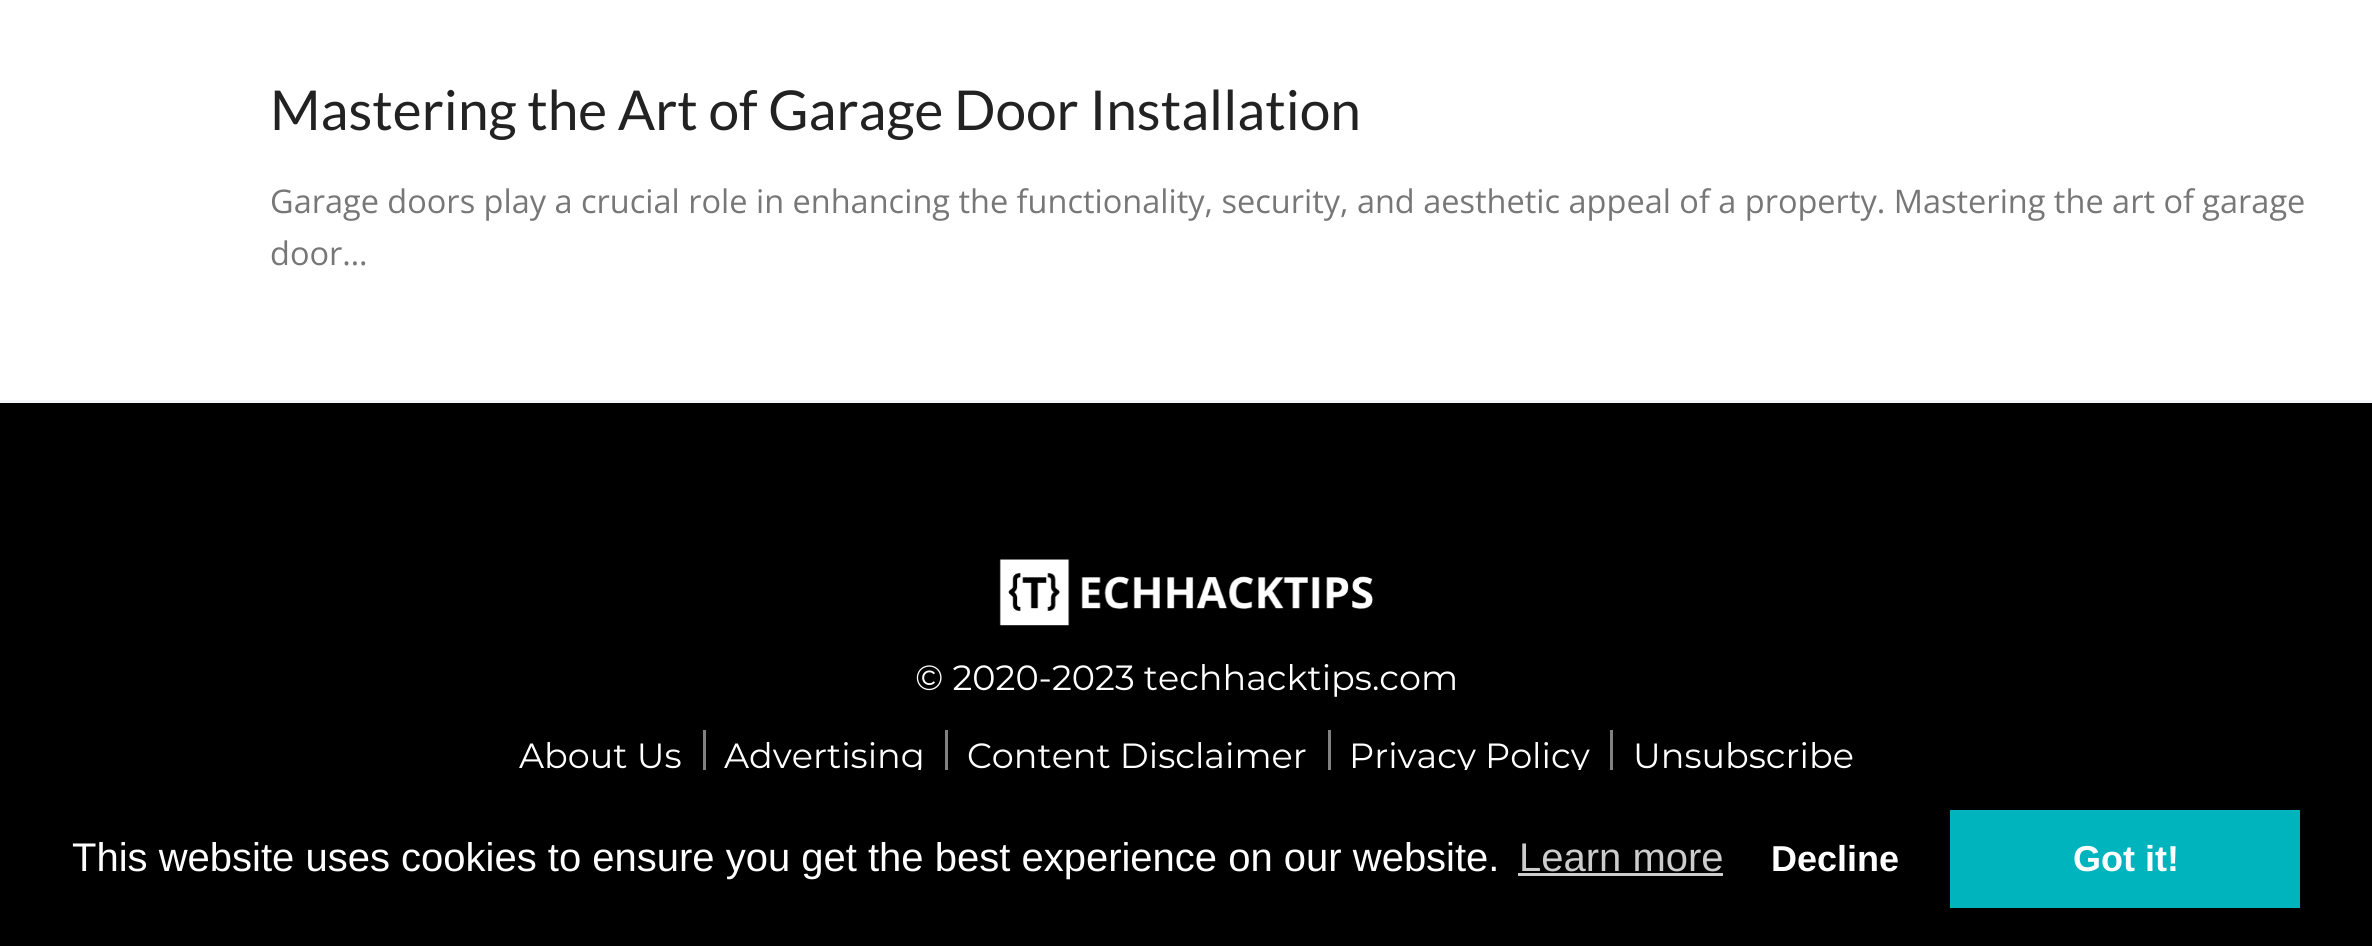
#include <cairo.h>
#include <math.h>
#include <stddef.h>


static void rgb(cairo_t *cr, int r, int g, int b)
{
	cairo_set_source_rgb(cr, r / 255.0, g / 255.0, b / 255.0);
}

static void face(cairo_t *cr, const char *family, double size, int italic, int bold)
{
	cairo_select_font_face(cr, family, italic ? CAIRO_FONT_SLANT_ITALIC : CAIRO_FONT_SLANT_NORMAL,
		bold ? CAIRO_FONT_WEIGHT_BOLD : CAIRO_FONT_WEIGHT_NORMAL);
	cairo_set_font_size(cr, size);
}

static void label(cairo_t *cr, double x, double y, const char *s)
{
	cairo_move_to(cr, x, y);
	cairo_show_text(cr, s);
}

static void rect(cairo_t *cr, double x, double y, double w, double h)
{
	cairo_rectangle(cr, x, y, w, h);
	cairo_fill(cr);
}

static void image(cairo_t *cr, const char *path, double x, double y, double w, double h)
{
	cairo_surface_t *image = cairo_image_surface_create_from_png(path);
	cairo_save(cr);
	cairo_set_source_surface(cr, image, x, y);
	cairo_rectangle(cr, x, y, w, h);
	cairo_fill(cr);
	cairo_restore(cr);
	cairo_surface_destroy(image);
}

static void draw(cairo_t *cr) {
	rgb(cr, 255, 255, 255);
	cairo_paint(cr);
	face(cr, "Lato", 55, 0, 0);
	rgb(cr, 34, 34, 34);
	label(cr, 270, 130, "Mastering the Art of Garage Door Installation");
	face(cr, "Open Sans", 32.5, 0, 0);
	rgb(cr, 119, 119, 119);
	label(cr, 270, 213, "Garage doors play a crucial role in enhancing the functionality, security, and aesthetic appeal of a property. Mastering the art of garage");
	label(cr, 270, 265, "door…");
	rgb(cr, 0, 0, 0);
	rect(cr, 0, 403, 2372, 367);
	rgb(cr, 243, 246, 249);
	rect(cr, 0, 400, 2372, 3);
	image(cr, "image0.png", 999, 559, 375, 67);
	face(cr, "Montserrat", 35, 0, 0);
	rgb(cr, 255, 255, 255);
	label(cr, 915, 690, "© 2020-2023 techhacktips.com");
	rgb(cr, 129, 129, 129);
	rect(cr, 703, 730, 3, 40);
	rgb(cr, 255, 255, 255);
	label(cr, 519, 768, "About Us");
	rgb(cr, 129, 129, 129);
	rect(cr, 945, 730, 3, 40);
	rgb(cr, 255, 255, 255);
	label(cr, 724, 768, "Advertising");
	rgb(cr, 129, 129, 129);
	rect(cr, 1328, 730, 3, 40);
	rgb(cr, 255, 255, 255);
	label(cr, 967, 768, "Content Disclaimer");
	rgb(cr, 129, 129, 129);
	rect(cr, 1610, 730, 3, 40);
	rgb(cr, 255, 255, 255);
	label(cr, 1349, 768, "Privacy Policy");
	label(cr, 1633, 768, "Unsubscribe");
	rgb(cr, 0, 0, 0);
	rect(cr, 0, 770, 2372, 176);
	face(cr, "Liberation Sans", 40, 0, 0);
	rgb(cr, 255, 255, 255);
	label(cr, 72, 871, "This website uses cookies to ensure you get the best experience on our website.");
	rgb(cr, 204, 204, 204);
	label(cr, 1519, 871, "Learn more");
	rect(cr, 1518, 873, 205, 3);
	face(cr, "Liberation Sans", 36, 0, 1);
	rgb(cr, 255, 255, 255);
	label(cr, 1771, 871, "Decline");
	rgb(cr, 0, 180, 190);
	rect(cr, 1950, 810, 350, 98);
	rgb(cr, 255, 255, 255);
	label(cr, 2073, 871, "Got it!");
}

int main(void) {
	cairo_surface_t *surface = cairo_image_surface_create(CAIRO_FORMAT_RGB24, 2372, 946);
	cairo_t *cr = cairo_create(surface);
	cairo_font_options_t *options = cairo_font_options_create();
	cairo_font_options_set_hint_metrics(options, CAIRO_HINT_METRICS_OFF);
	cairo_font_options_set_hint_style(options, CAIRO_HINT_STYLE_NONE);
	cairo_set_font_options(cr, options);
	cairo_set_miter_limit(cr, 4);
	draw(cr);
	cairo_surface_write_to_png(surface, "render.png");
	cairo_font_options_destroy(options);
	cairo_destroy(cr);
	cairo_surface_destroy(surface);
	return 0;
}
